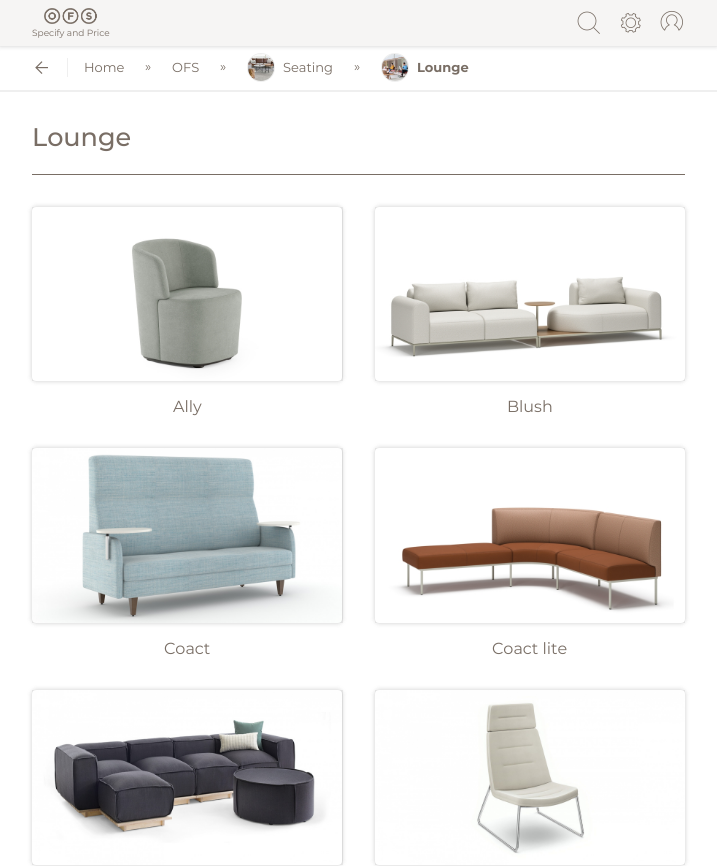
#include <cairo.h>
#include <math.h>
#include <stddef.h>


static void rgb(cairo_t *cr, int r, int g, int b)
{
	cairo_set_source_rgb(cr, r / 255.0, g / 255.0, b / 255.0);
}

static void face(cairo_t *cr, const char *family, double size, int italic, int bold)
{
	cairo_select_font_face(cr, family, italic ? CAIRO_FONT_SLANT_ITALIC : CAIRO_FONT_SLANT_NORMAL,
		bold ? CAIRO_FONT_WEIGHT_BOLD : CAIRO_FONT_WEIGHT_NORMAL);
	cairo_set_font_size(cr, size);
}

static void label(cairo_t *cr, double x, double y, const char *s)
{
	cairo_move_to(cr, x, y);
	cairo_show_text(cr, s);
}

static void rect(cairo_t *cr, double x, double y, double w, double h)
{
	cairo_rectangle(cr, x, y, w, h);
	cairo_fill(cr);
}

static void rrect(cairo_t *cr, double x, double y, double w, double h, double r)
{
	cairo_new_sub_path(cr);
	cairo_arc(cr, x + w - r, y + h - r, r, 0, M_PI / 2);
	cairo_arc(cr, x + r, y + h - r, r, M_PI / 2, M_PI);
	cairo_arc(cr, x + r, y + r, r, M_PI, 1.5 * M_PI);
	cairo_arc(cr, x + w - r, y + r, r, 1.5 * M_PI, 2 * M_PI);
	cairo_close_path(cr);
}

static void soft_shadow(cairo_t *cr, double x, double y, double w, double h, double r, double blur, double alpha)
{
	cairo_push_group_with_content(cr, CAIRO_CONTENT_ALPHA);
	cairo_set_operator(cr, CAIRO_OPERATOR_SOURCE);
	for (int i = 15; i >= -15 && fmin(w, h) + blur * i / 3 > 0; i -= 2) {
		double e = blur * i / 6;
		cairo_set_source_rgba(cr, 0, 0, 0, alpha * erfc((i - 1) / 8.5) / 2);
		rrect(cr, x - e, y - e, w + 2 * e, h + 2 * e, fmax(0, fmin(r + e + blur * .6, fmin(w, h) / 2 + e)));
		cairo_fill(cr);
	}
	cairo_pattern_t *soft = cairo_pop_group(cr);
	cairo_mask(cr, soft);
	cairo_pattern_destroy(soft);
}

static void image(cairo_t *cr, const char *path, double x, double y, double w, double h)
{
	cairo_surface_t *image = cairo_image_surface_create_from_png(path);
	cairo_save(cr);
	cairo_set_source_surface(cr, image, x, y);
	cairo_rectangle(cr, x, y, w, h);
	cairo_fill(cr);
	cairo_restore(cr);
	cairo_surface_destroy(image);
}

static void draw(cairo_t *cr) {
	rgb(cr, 255, 255, 255);
	cairo_paint(cr);
	rrect(cr, 247.5, 53.5, 27, 28, 13.5);
	rgb(cr, 238, 238, 238);
	cairo_set_line_width(cr, 1);
	cairo_stroke(cr);
	image(cr, "image4.png", 248, 54, 26, 27);
	rrect(cr, 381.5, 53.5, 27, 28, 13.5);
	cairo_stroke(cr);
	image(cr, "image5.png", 382, 54, 26, 27);
	rgb(cr, 0, 0, 0);
	soft_shadow(cr, 0, 0, 717, 46, 0, 2.5, 0.2);
	rgb(cr, 246, 245, 244);
	rect(cr, 0, 0, 717, 46);
	image(cr, "image0.png", 44, 8, 53, 16);
	face(cr, "Montserrat", 9, 0, 0);
	rgb(cr, 121, 110, 101);
	label(cr, 32, 36, "Specify and Price");
	cairo_new_path(cr);
	cairo_arc(cr, 587, 21, 9, 0, 2 * M_PI);
	cairo_set_line_width(cr, 0.8);
	cairo_stroke(cr);
	cairo_new_path(cr);
	cairo_move_to(cr, 593.5, 27.5);
	cairo_line_to(cr, 599.5, 33.5);
	cairo_set_line_cap(cr, CAIRO_LINE_CAP_ROUND);
	cairo_stroke(cr);
	image(cr, "image1.png", 621, 13, 20, 20);
	image(cr, "image2.png", 660, 10, 23, 21);
	rgb(cr, 239, 239, 239);
	rect(cr, 0, 90, 717, 2);
	rect(cr, 67, 58, 1, 19);
	image(cr, "image3.png", 35, 61, 13, 13);
	face(cr, "Montserrat", 13, 0, 0);
	rgb(cr, 121, 110, 101);
	label(cr, 84, 72, "Home");
	label(cr, 145, 71, "»");
	label(cr, 172, 72, "OFS");
	label(cr, 220, 71, "»");
	label(cr, 283, 72, "Seating");
	label(cr, 354, 71, "»");
	face(cr, "Montserrat", 13, 0, 1);
	label(cr, 417, 72, "Lounge");
	rect(cr, 32, 174, 653, 1);
	face(cr, "Montserrat Medium", 25.5, 0, 0);
	label(cr, 32, 146, "Lounge");
	rgb(cr, 238, 238, 238);
	rect(cr, 32, 207, 311, 174);
	rgb(cr, 0, 0, 0);
	soft_shadow(cr, 32, 207, 310, 174, 4, 2.5, 0.2);
	image(cr, "image6.png", 32, 207, 310, 174);
	face(cr, "Montserrat", 16, 0, 0);
	rgb(cr, 121, 110, 101);
	label(cr, 173, 412, "Ally");
	rgb(cr, 238, 238, 238);
	rect(cr, 375, 207, 310, 174);
	rgb(cr, 0, 0, 0);
	soft_shadow(cr, 375, 207, 310, 174, 4, 2.5, 0.2);
	image(cr, "image7.png", 375, 207, 310, 174);
	rgb(cr, 121, 110, 101);
	label(cr, 507, 412, "Blush");
	rgb(cr, 238, 238, 238);
	rect(cr, 32, 448, 311, 175);
	rgb(cr, 0, 0, 0);
	soft_shadow(cr, 32, 448, 310, 175, 4, 2.5, 0.2);
	image(cr, "image8.png", 32, 448, 310, 175);
	rgb(cr, 121, 110, 101);
	label(cr, 164, 654, "Coact");
	rgb(cr, 238, 238, 238);
	rect(cr, 375, 448, 310, 175);
	rgb(cr, 0, 0, 0);
	soft_shadow(cr, 375, 448, 310, 175, 4, 2.5, 0.2);
	image(cr, "image9.png", 375, 448, 310, 175);
	rgb(cr, 121, 110, 101);
	label(cr, 492, 654, "Coact lite");
	rgb(cr, 238, 238, 238);
	rect(cr, 32, 690, 311, 175);
	rgb(cr, 0, 0, 0);
	soft_shadow(cr, 32, 690, 310, 175, 4, 2.5, 0.2);
	image(cr, "image10.png", 32, 690, 310, 175);
	rgb(cr, 238, 238, 238);
	rect(cr, 375, 690, 310, 175);
	rgb(cr, 0, 0, 0);
	soft_shadow(cr, 375, 690, 310, 175, 4, 2.5, 0.2);
	image(cr, "image11.png", 375, 690, 310, 175);
}

int main(void) {
	cairo_surface_t *surface = cairo_image_surface_create(CAIRO_FORMAT_RGB24, 717, 866);
	cairo_t *cr = cairo_create(surface);
	cairo_font_options_t *options = cairo_font_options_create();
	cairo_font_options_set_hint_metrics(options, CAIRO_HINT_METRICS_OFF);
	cairo_font_options_set_hint_style(options, CAIRO_HINT_STYLE_NONE);
	cairo_set_font_options(cr, options);
	cairo_set_miter_limit(cr, 4);
	draw(cr);
	cairo_surface_write_to_png(surface, "render.png");
	cairo_font_options_destroy(options);
	cairo_destroy(cr);
	cairo_surface_destroy(surface);
	return 0;
}
